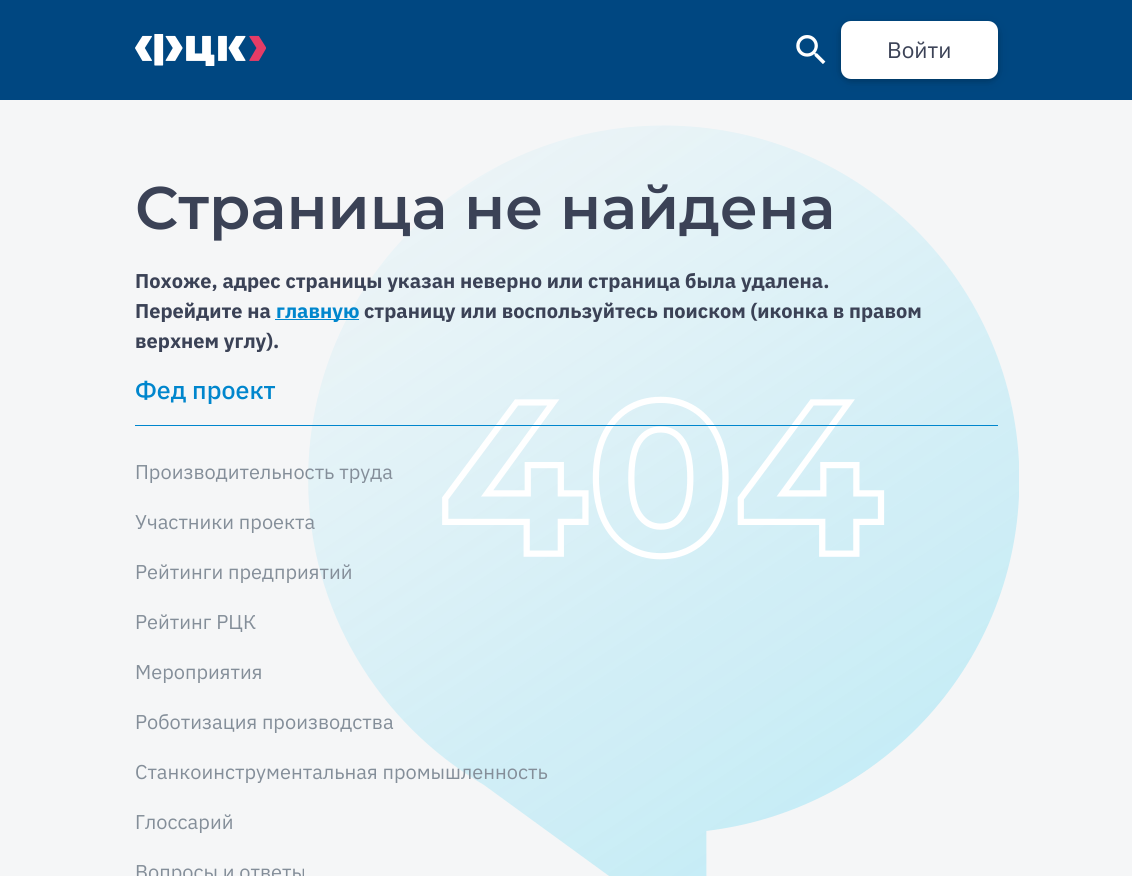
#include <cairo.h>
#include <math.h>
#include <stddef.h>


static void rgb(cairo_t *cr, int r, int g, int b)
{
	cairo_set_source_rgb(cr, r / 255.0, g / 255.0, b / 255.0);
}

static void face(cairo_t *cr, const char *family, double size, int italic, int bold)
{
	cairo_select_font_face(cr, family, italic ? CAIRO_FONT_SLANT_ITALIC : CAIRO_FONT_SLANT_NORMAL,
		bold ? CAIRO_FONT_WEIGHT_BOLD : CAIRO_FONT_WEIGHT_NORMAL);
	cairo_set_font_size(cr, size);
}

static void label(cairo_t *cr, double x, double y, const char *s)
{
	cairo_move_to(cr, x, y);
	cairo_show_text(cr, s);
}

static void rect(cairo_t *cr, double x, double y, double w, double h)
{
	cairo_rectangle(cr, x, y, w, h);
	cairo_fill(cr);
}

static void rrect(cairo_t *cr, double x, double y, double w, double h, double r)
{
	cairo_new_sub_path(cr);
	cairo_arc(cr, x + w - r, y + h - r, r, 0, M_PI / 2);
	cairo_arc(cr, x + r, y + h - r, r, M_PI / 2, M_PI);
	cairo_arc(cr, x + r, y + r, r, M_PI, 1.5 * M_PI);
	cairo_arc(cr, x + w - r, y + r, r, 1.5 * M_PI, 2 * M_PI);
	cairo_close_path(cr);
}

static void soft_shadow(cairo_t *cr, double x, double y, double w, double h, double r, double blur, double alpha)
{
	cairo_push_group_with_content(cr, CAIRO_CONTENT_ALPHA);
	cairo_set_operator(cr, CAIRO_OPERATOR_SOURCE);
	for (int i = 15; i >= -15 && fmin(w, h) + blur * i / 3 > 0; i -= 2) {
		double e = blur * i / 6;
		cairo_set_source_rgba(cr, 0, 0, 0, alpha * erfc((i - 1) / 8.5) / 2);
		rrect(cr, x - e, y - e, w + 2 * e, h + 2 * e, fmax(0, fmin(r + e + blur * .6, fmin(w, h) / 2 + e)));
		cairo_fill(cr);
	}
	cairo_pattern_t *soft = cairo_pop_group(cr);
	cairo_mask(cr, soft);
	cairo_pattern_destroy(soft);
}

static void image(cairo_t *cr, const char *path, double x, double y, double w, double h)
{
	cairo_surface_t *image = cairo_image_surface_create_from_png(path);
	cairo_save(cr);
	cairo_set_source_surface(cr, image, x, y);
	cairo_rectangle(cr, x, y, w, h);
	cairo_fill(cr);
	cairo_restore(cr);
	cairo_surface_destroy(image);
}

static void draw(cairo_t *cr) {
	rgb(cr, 245, 246, 247);
	cairo_paint(cr);
	rgb(cr, 0, 71, 129);
	rect(cr, 0, 0, 1132, 100);
	image(cr, "image0.png", 135, 34, 131, 32);
	image(cr, "image1.png", 796, 35, 30, 29);
	rgb(cr, 0, 0, 0);
	soft_shadow(cr, 841, 24, 157, 57, 10, 6, 0.12);
	soft_shadow(cr, 841, 24, 157, 57, 10, 3, 0.16);
	rgb(cr, 255, 255, 255);
	rrect(cr, 841, 21, 157, 58, 10);
	cairo_fill(cr);
	face(cr, "IBM Plex Sans", 22.5, 0, 0);
	rgb(cr, 59, 66, 86);
	label(cr, 887, 58, "Войти");
	image(cr, "image2.png", 308, 125, 711, 751);
	face(cr, "Montserrat SemiBold", 60, 0, 0);
	label(cr, 135, 229, "Страница не найдена");
	face(cr, "IBM Plex Sans", 20, 0, 1);
	label(cr, 135, 288, "Похоже, адрес страницы указан неверно или страница была удалена.");
	label(cr, 135, 318, "Перейдите на");
	rgb(cr, 0, 134, 205);
	rect(cr, 275, 319, 84, 1);
	label(cr, 276, 318, "главную");
	rgb(cr, 59, 66, 86);
	label(cr, 364, 318, "страницу или воспользуйтесь поиском (иконка в правом");
	label(cr, 135, 348, "верхнем углу).");
	face(cr, "IBM Plex Sans Medium", 25, 0, 0);
	rgb(cr, 0, 134, 205);
	label(cr, 135, 399, "Фед проект");
	rect(cr, 135, 425, 863, 1);
	face(cr, "IBM Plex Sans", 20, 0, 0);
	rgb(cr, 132, 142, 153);
	label(cr, 135, 479, "Производительность труда");
	label(cr, 135, 529, "Участники проекта");
	label(cr, 135, 579, "Рейтинги предприятий");
	label(cr, 135, 629, "Рейтинг РЦК");
	label(cr, 135, 679, "Мероприятия");
	label(cr, 135, 729, "Роботизация производства");
	label(cr, 135, 779, "Станкоинструментальная промышленность");
	label(cr, 135, 829, "Глоссарий");
	label(cr, 135, 879, "Вопросы и ответы");
}

int main(void) {
	cairo_surface_t *surface = cairo_image_surface_create(CAIRO_FORMAT_RGB24, 1132, 876);
	cairo_t *cr = cairo_create(surface);
	cairo_font_options_t *options = cairo_font_options_create();
	cairo_font_options_set_hint_metrics(options, CAIRO_HINT_METRICS_OFF);
	cairo_font_options_set_hint_style(options, CAIRO_HINT_STYLE_NONE);
	cairo_set_font_options(cr, options);
	cairo_set_miter_limit(cr, 4);
	draw(cr);
	cairo_surface_write_to_png(surface, "render.png");
	cairo_font_options_destroy(options);
	cairo_destroy(cr);
	cairo_surface_destroy(surface);
	return 0;
}
